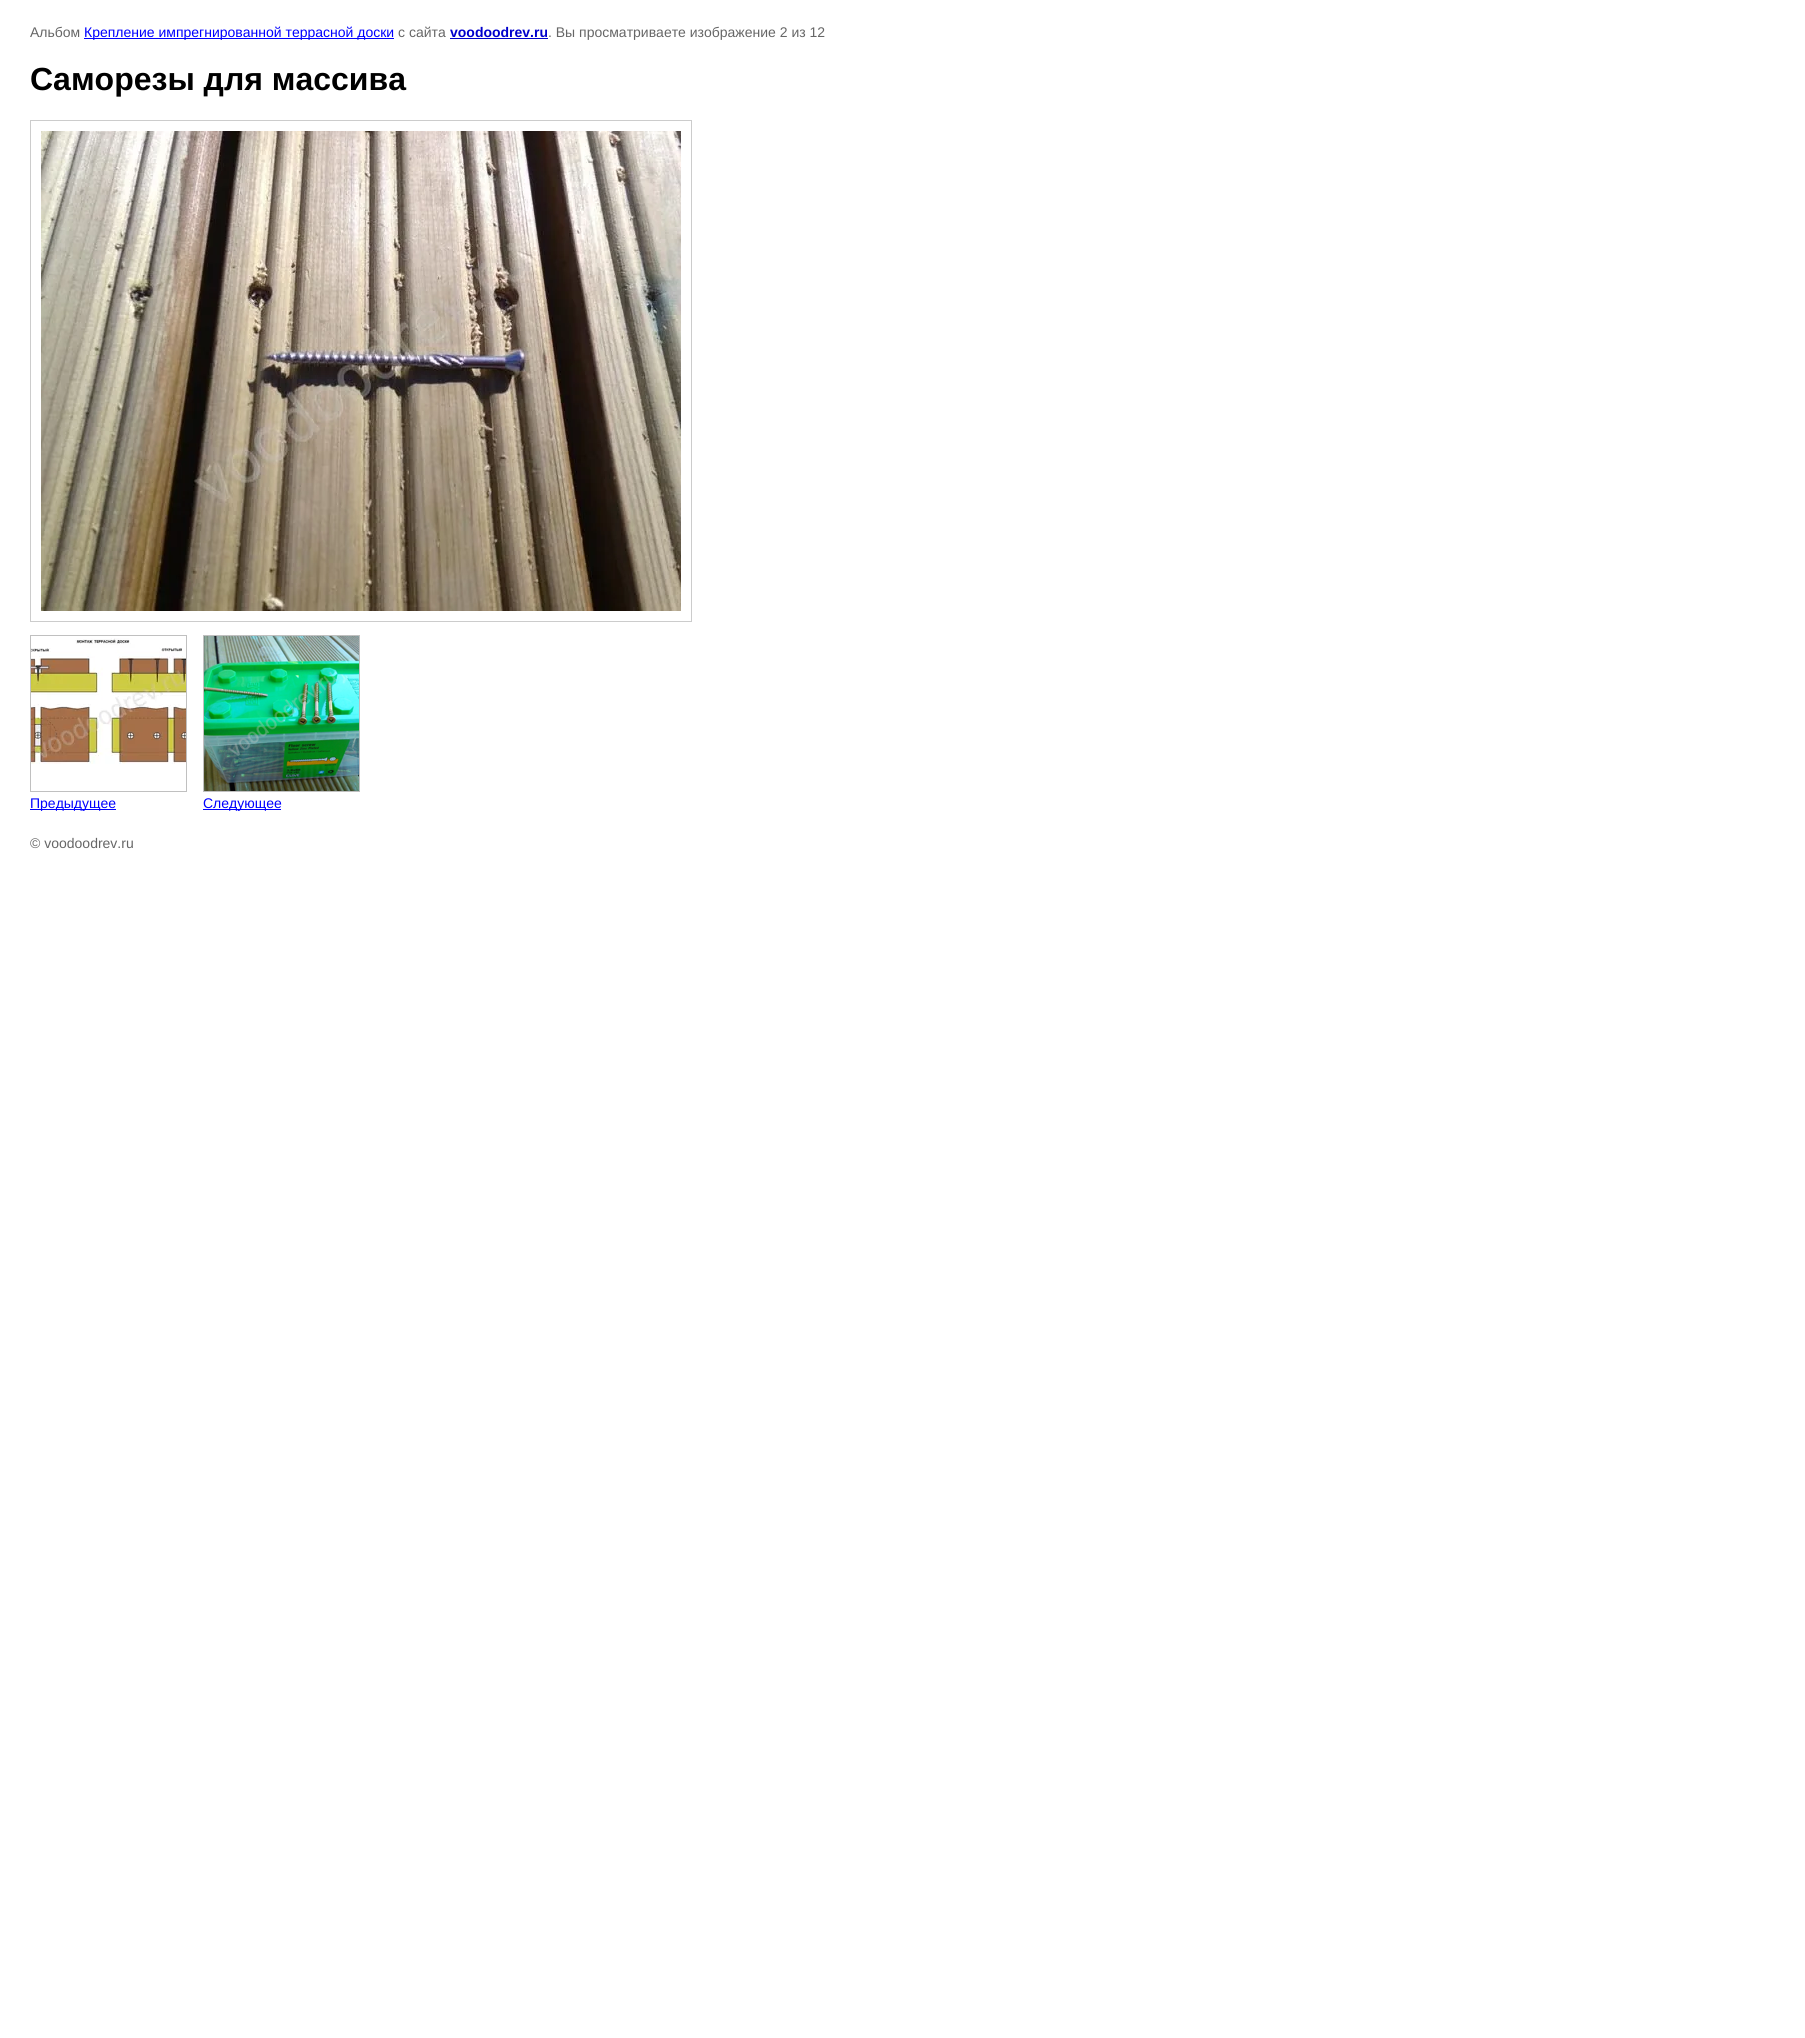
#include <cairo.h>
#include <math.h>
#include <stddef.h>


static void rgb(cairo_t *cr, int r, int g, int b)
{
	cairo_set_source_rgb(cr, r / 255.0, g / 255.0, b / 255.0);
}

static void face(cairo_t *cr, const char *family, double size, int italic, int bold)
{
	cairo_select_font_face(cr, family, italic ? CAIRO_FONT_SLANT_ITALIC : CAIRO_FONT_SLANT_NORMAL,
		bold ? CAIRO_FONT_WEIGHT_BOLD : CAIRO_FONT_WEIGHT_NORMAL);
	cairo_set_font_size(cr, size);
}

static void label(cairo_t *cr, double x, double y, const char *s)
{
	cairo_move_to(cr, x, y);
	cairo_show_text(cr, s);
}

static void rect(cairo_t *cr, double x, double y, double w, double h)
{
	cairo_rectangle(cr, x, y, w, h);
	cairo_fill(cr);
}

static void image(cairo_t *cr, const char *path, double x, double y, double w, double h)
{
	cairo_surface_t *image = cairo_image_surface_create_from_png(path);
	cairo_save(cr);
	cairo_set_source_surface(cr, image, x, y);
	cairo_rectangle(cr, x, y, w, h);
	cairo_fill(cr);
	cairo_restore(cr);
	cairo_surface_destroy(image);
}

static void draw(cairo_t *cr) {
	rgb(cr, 255, 255, 255);
	cairo_paint(cr);
	face(cr, "Liberation Sans", 14, 0, 0);
	rgb(cr, 102, 102, 102);
	label(cr, 30, 37, "Альбом");
	rgb(cr, 0, 0, 255);
	rect(cr, 84, 38, 310, 1);
	label(cr, 84, 37, "Крепление импрегнированной террасной доски");
	rgb(cr, 102, 102, 102);
	label(cr, 398, 37, "с сайта");
	face(cr, "Liberation Sans", 14, 0, 1);
	rgb(cr, 0, 0, 204);
	label(cr, 450, 37, "voodoodrev.ru");
	rect(cr, 450, 38, 98, 1);
	face(cr, "Liberation Sans", 14, 0, 0);
	rgb(cr, 102, 102, 102);
	label(cr, 548, 37, ". Вы просматриваете изображение 2 из 12");
	face(cr, "Liberation Sans", 32, 0, 1);
	rgb(cr, 0, 0, 0);
	label(cr, 30, 90, "Саморезы для массива");
	cairo_rectangle(cr, 30.5, 120.5, 661, 501);
	rgb(cr, 204, 204, 204);
	cairo_set_line_width(cr, 1);
	cairo_stroke(cr);
	image(cr, "image0.png", 41, 131, 640, 480);
	cairo_rectangle(cr, 30.5, 635.5, 156, 156);
	rgb(cr, 192, 192, 192);
	cairo_stroke(cr);
	image(cr, "image1.png", 31, 638, 155, 126);
	rgb(cr, 0, 0, 255);
	rect(cr, 30, 809, 86, 1);
	face(cr, "Liberation Sans", 14, 0, 0);
	label(cr, 30, 808, "Предыдущее");
	cairo_rectangle(cr, 203.5, 635.5, 156, 156);
	rgb(cr, 192, 192, 192);
	cairo_stroke(cr);
	image(cr, "image2.png", 204, 636, 155, 155);
	rgb(cr, 0, 0, 255);
	rect(cr, 203, 809, 78, 1);
	label(cr, 203, 808, "Следующее");
	rgb(cr, 102, 102, 102);
	label(cr, 30, 848, "© voodoodrev.ru");
}

int main(void) {
	cairo_surface_t *surface = cairo_image_surface_create(CAIRO_FORMAT_RGB24, 1805, 2038);
	cairo_t *cr = cairo_create(surface);
	cairo_font_options_t *options = cairo_font_options_create();
	cairo_font_options_set_hint_metrics(options, CAIRO_HINT_METRICS_OFF);
	cairo_font_options_set_hint_style(options, CAIRO_HINT_STYLE_NONE);
	cairo_set_font_options(cr, options);
	cairo_set_miter_limit(cr, 4);
	draw(cr);
	cairo_surface_write_to_png(surface, "render.png");
	cairo_font_options_destroy(options);
	cairo_destroy(cr);
	cairo_surface_destroy(surface);
	return 0;
}
